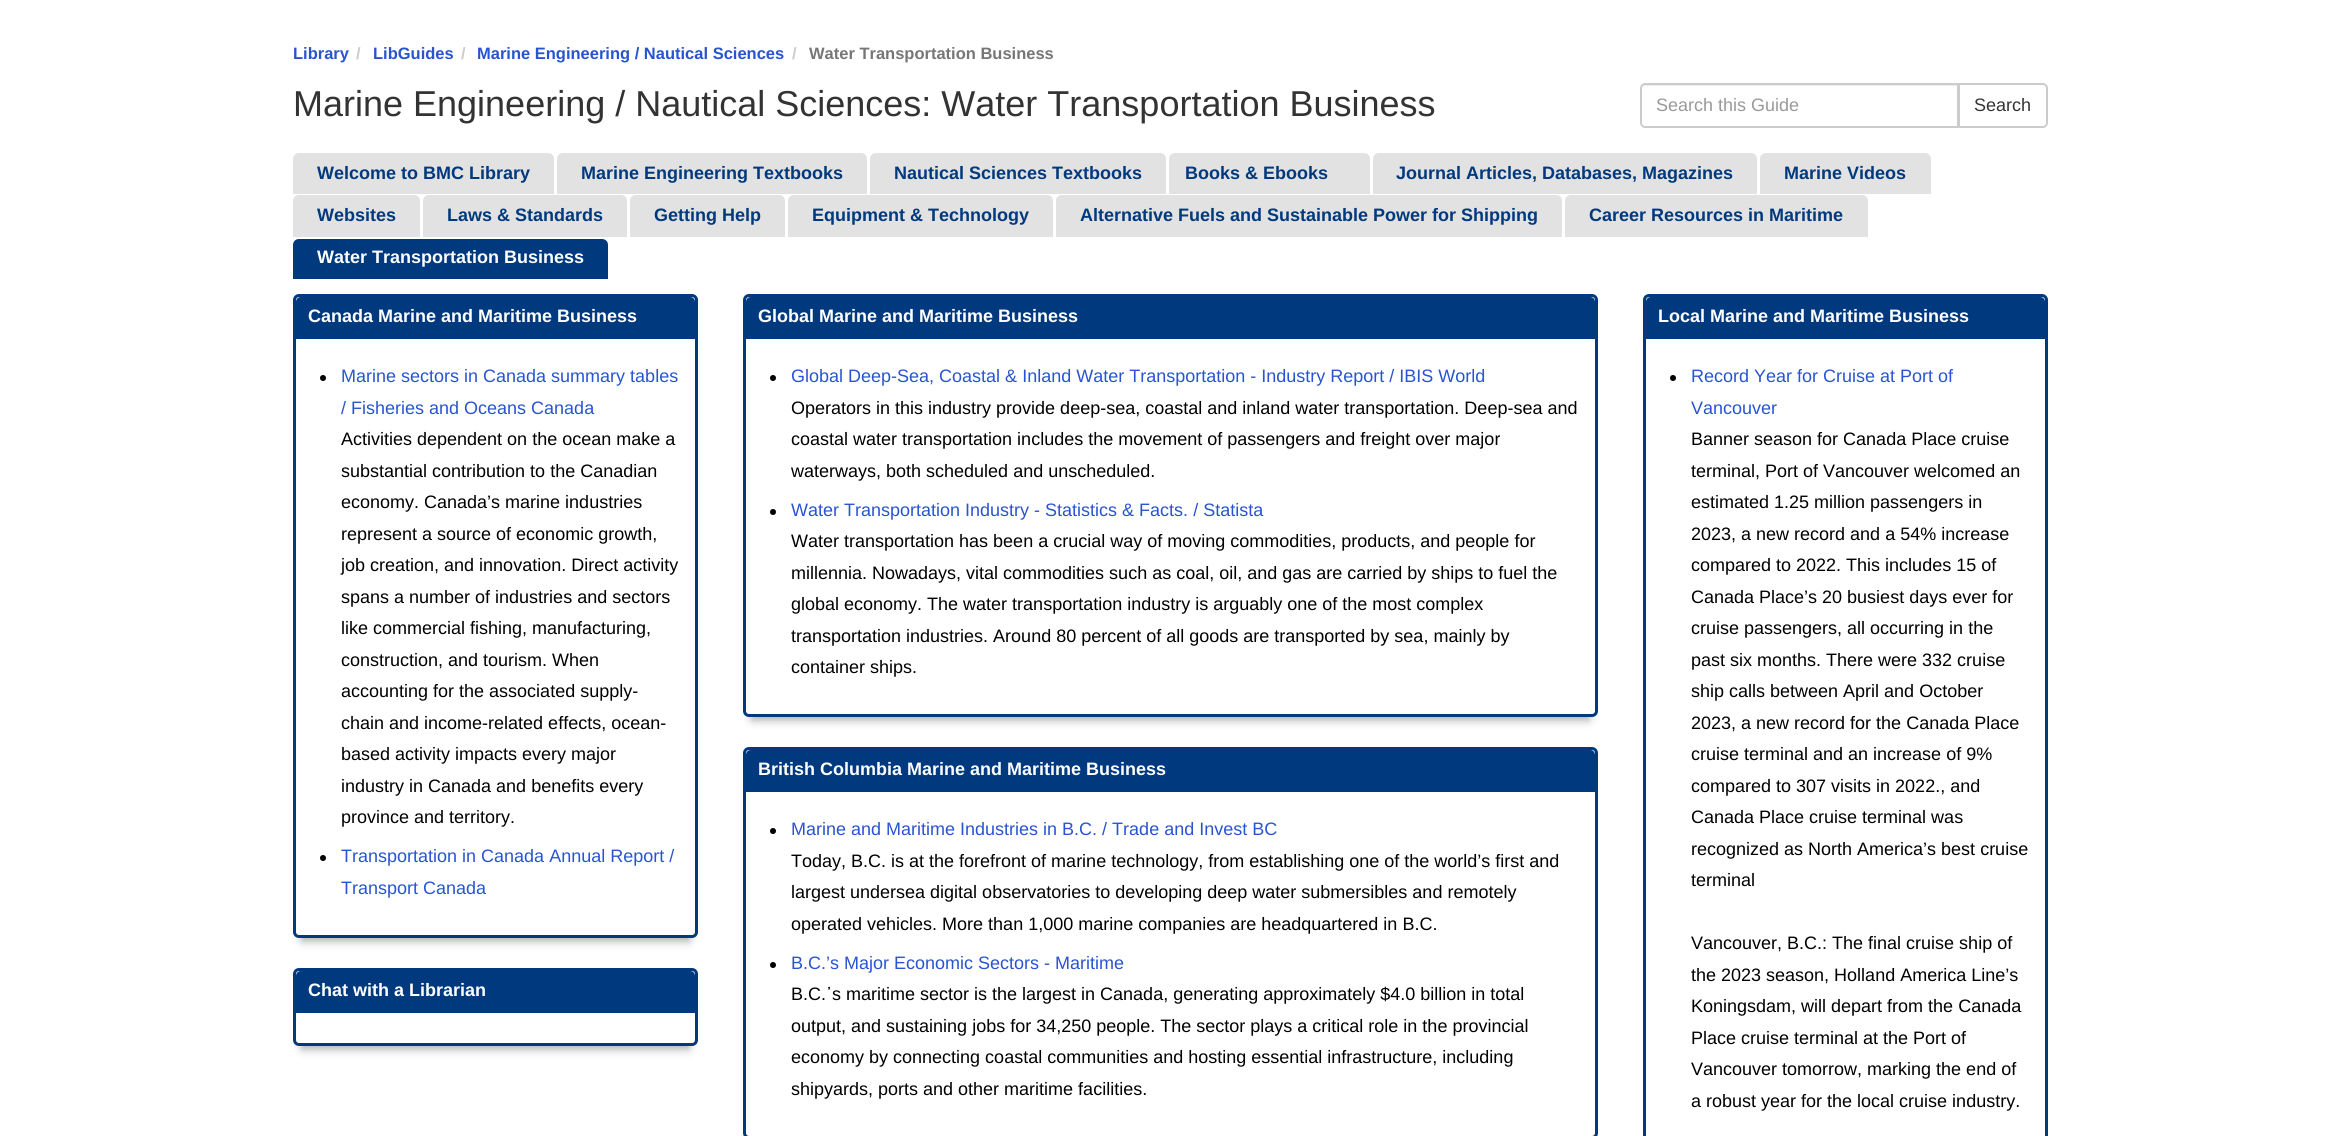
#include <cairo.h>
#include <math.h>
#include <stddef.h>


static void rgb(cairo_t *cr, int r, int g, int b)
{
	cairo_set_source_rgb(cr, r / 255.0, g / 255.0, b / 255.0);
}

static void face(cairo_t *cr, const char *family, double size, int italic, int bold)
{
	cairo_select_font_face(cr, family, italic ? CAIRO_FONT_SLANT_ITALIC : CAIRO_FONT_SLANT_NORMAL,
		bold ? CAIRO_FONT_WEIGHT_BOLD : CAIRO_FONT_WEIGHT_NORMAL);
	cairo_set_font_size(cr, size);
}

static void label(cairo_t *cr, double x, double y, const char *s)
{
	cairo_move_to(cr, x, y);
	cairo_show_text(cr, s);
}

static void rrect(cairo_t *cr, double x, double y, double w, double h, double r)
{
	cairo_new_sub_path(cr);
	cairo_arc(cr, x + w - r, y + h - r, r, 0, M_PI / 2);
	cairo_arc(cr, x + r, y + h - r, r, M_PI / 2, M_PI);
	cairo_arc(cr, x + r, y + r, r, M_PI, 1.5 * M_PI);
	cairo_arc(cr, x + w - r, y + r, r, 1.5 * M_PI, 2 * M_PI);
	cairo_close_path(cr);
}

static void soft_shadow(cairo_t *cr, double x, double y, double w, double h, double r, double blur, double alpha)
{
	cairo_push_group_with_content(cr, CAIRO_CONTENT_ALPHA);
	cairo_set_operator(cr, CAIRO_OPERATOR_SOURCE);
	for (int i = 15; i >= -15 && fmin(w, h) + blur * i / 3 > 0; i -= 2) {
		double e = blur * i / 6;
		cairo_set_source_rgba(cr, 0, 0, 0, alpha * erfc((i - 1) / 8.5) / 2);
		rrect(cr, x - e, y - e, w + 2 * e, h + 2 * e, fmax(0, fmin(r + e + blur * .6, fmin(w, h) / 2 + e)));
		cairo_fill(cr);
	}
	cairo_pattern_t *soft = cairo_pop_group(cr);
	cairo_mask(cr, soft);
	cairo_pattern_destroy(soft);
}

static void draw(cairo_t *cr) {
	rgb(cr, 255, 255, 255);
	cairo_paint(cr);
	face(cr, "Liberation Sans", 16.5, 0, 1);
	rgb(cr, 41, 84, 209);
	label(cr, 293, 59, "Library");
	rgb(cr, 204, 204, 204);
	label(cr, 356, 59, "/");
	rgb(cr, 41, 84, 209);
	label(cr, 373, 59, "LibGuides");
	rgb(cr, 204, 204, 204);
	label(cr, 461, 59, "/");
	rgb(cr, 41, 84, 209);
	label(cr, 477, 59, "Marine Engineering / Nautical Sciences");
	rgb(cr, 204, 204, 204);
	label(cr, 792, 59, "/");
	rgb(cr, 118, 118, 118);
	label(cr, 809, 59, "Water Transportation Business");
	face(cr, "Liberation Sans", 36, 0, 0);
	rgb(cr, 51, 51, 51);
	label(cr, 293, 116, "Marine Engineering / Nautical Sciences: Water Transportation Business");
	rgb(cr, 236, 236, 236);
	cairo_new_path(cr);
	cairo_move_to(cr, 1644, 86);
	cairo_line_to(cr, 1958, 86);
	cairo_line_to(cr, 1958, 84);
	cairo_line_to(cr, 1644, 84);
	cairo_curve_to(cr, 1642, 84, 1641, 86, 1641, 88);
	cairo_curve_to(cr, 1641, 87, 1642, 86, 1644, 86);
	cairo_close_path(cr);
	cairo_fill(cr);
	cairo_new_path(cr);
	cairo_move_to(cr, 1645, 84);
	cairo_line_to(cr, 1958, 84);
	cairo_line_to(cr, 1958, 127);
	cairo_line_to(cr, 1645, 127);
	cairo_curve_to(cr, 1643, 127, 1641, 125, 1641, 123);
	cairo_line_to(cr, 1641, 88);
	cairo_curve_to(cr, 1641, 86, 1643, 84, 1645, 84);
	cairo_close_path(cr);
	rgb(cr, 204, 204, 204);
	cairo_stroke(cr);
	face(cr, "Liberation Sans", 18, 0, 0);
	rgb(cr, 153, 153, 153);
	label(cr, 1656, 111, "Search this Guide");
	rgb(cr, 255, 255, 255);
	cairo_new_path(cr);
	cairo_move_to(cr, 1959, 84);
	cairo_line_to(cr, 2043, 84);
	cairo_curve_to(cr, 2045, 84, 2047, 86, 2047, 88);
	cairo_line_to(cr, 2047, 123);
	cairo_curve_to(cr, 2047, 125, 2045, 127, 2043, 127);
	cairo_line_to(cr, 1959, 127);
	cairo_close_path(cr);
	cairo_fill_preserve(cr);
	rgb(cr, 204, 204, 204);
	cairo_stroke(cr);
	rgb(cr, 51, 51, 51);
	label(cr, 1974, 111, "Search");
	rgb(cr, 226, 226, 226);
	cairo_new_path(cr);
	cairo_move_to(cr, 299, 153);
	cairo_line_to(cr, 548, 153);
	cairo_curve_to(cr, 551.5, 153, 554, 155.5, 554, 159);
	cairo_line_to(cr, 554, 194);
	cairo_line_to(cr, 293, 194);
	cairo_line_to(cr, 293, 159);
	cairo_curve_to(cr, 293, 155.5, 295.5, 153, 299, 153);
	cairo_close_path(cr);
	cairo_fill(cr);
	face(cr, "Liberation Sans", 18, 0, 1);
	rgb(cr, 0, 57, 126);
	label(cr, 317, 179, "Welcome to BMC Library");
	rgb(cr, 226, 226, 226);
	cairo_new_path(cr);
	cairo_move_to(cr, 563, 153);
	cairo_line_to(cr, 861, 153);
	cairo_curve_to(cr, 864.5, 153, 867, 155.5, 867, 159);
	cairo_line_to(cr, 867, 194);
	cairo_line_to(cr, 557, 194);
	cairo_line_to(cr, 557, 159);
	cairo_curve_to(cr, 557, 155.5, 559.5, 153, 563, 153);
	cairo_close_path(cr);
	cairo_fill(cr);
	rgb(cr, 0, 57, 126);
	label(cr, 581, 179, "Marine Engineering Textbooks");
	rgb(cr, 226, 226, 226);
	cairo_new_path(cr);
	cairo_move_to(cr, 876, 153);
	cairo_line_to(cr, 1160, 153);
	cairo_curve_to(cr, 1163.5, 153, 1166, 155.5, 1166, 159);
	cairo_line_to(cr, 1166, 194);
	cairo_line_to(cr, 870, 194);
	cairo_line_to(cr, 870, 159);
	cairo_curve_to(cr, 870, 155.5, 872.5, 153, 876, 153);
	cairo_close_path(cr);
	cairo_fill(cr);
	rgb(cr, 0, 57, 126);
	label(cr, 894, 179, "Nautical Sciences Textbooks");
	rgb(cr, 226, 226, 226);
	cairo_new_path(cr);
	cairo_move_to(cr, 1175, 153);
	cairo_line_to(cr, 1338, 153);
	cairo_line_to(cr, 1338, 194);
	cairo_line_to(cr, 1169, 194);
	cairo_line_to(cr, 1169, 159);
	cairo_curve_to(cr, 1169, 155.5, 1171.5, 153, 1175, 153);
	cairo_close_path(cr);
	cairo_fill(cr);
	rgb(cr, 0, 57, 126);
	label(cr, 1185, 179, "Books & Ebooks");
	rgb(cr, 226, 226, 226);
	cairo_new_path(cr);
	cairo_move_to(cr, 1338, 153);
	cairo_line_to(cr, 1364, 153);
	cairo_curve_to(cr, 1367.5, 153, 1370, 155.5, 1370, 159);
	cairo_line_to(cr, 1370, 194);
	cairo_line_to(cr, 1338, 194);
	cairo_close_path(cr);
	cairo_fill(cr);
	cairo_new_path(cr);
	cairo_move_to(cr, 1379, 153);
	cairo_line_to(cr, 1751, 153);
	cairo_curve_to(cr, 1754.5, 153, 1757, 155.5, 1757, 159);
	cairo_line_to(cr, 1757, 194);
	cairo_line_to(cr, 1373, 194);
	cairo_line_to(cr, 1373, 159);
	cairo_curve_to(cr, 1373, 155.5, 1375.5, 153, 1379, 153);
	cairo_close_path(cr);
	cairo_fill(cr);
	rgb(cr, 0, 57, 126);
	label(cr, 1396, 179, "Journal Articles, Databases, Magazines");
	rgb(cr, 226, 226, 226);
	cairo_new_path(cr);
	cairo_move_to(cr, 1766, 153);
	cairo_line_to(cr, 1925, 153);
	cairo_curve_to(cr, 1928.5, 153, 1931, 155.5, 1931, 159);
	cairo_line_to(cr, 1931, 194);
	cairo_line_to(cr, 1760, 194);
	cairo_line_to(cr, 1760, 159);
	cairo_curve_to(cr, 1760, 155.5, 1762.5, 153, 1766, 153);
	cairo_close_path(cr);
	cairo_fill(cr);
	rgb(cr, 0, 57, 126);
	label(cr, 1784, 179, "Marine Videos");
	rgb(cr, 226, 226, 226);
	cairo_new_path(cr);
	cairo_move_to(cr, 299, 195);
	cairo_line_to(cr, 414, 195);
	cairo_curve_to(cr, 417.5, 195, 420, 197.5, 420, 201);
	cairo_line_to(cr, 420, 237);
	cairo_line_to(cr, 293, 237);
	cairo_line_to(cr, 293, 201);
	cairo_curve_to(cr, 293, 197.5, 295.5, 195, 299, 195);
	cairo_close_path(cr);
	cairo_fill(cr);
	rgb(cr, 0, 57, 126);
	label(cr, 317, 221, "Websites");
	rgb(cr, 226, 226, 226);
	cairo_new_path(cr);
	cairo_move_to(cr, 429, 195);
	cairo_line_to(cr, 621, 195);
	cairo_curve_to(cr, 624.5, 195, 627, 197.5, 627, 201);
	cairo_line_to(cr, 627, 237);
	cairo_line_to(cr, 423, 237);
	cairo_line_to(cr, 423, 201);
	cairo_curve_to(cr, 423, 197.5, 425.5, 195, 429, 195);
	cairo_close_path(cr);
	cairo_fill(cr);
	rgb(cr, 0, 57, 126);
	label(cr, 447, 221, "Laws & Standards");
	rgb(cr, 226, 226, 226);
	cairo_new_path(cr);
	cairo_move_to(cr, 636, 195);
	cairo_line_to(cr, 779, 195);
	cairo_curve_to(cr, 782.5, 195, 785, 197.5, 785, 201);
	cairo_line_to(cr, 785, 237);
	cairo_line_to(cr, 630, 237);
	cairo_line_to(cr, 630, 201);
	cairo_curve_to(cr, 630, 197.5, 632.5, 195, 636, 195);
	cairo_close_path(cr);
	cairo_fill(cr);
	rgb(cr, 0, 57, 126);
	label(cr, 654, 221, "Getting Help");
	rgb(cr, 226, 226, 226);
	cairo_new_path(cr);
	cairo_move_to(cr, 794, 195);
	cairo_line_to(cr, 1047, 195);
	cairo_curve_to(cr, 1050.5, 195, 1053, 197.5, 1053, 201);
	cairo_line_to(cr, 1053, 237);
	cairo_line_to(cr, 788, 237);
	cairo_line_to(cr, 788, 201);
	cairo_curve_to(cr, 788, 197.5, 790.5, 195, 794, 195);
	cairo_close_path(cr);
	cairo_fill(cr);
	rgb(cr, 0, 57, 126);
	label(cr, 812, 221, "Equipment & Technology");
	rgb(cr, 226, 226, 226);
	cairo_new_path(cr);
	cairo_move_to(cr, 1062, 195);
	cairo_line_to(cr, 1556, 195);
	cairo_curve_to(cr, 1559.5, 195, 1562, 197.5, 1562, 201);
	cairo_line_to(cr, 1562, 237);
	cairo_line_to(cr, 1056, 237);
	cairo_line_to(cr, 1056, 201);
	cairo_curve_to(cr, 1056, 197.5, 1058.5, 195, 1062, 195);
	cairo_close_path(cr);
	cairo_fill(cr);
	rgb(cr, 0, 57, 126);
	label(cr, 1080, 221, "Alternative Fuels and Sustainable Power for Shipping");
	rgb(cr, 226, 226, 226);
	cairo_new_path(cr);
	cairo_move_to(cr, 1571, 195);
	cairo_line_to(cr, 1862, 195);
	cairo_curve_to(cr, 1865.5, 195, 1868, 197.5, 1868, 201);
	cairo_line_to(cr, 1868, 237);
	cairo_line_to(cr, 1565, 237);
	cairo_line_to(cr, 1565, 201);
	cairo_curve_to(cr, 1565, 197.5, 1567.5, 195, 1571, 195);
	cairo_close_path(cr);
	cairo_fill(cr);
	rgb(cr, 0, 57, 126);
	label(cr, 1589, 221, "Career Resources in Maritime");
	cairo_new_path(cr);
	cairo_move_to(cr, 299, 239);
	cairo_line_to(cr, 602, 239);
	cairo_curve_to(cr, 605.5, 239, 608, 241.5, 608, 245);
	cairo_line_to(cr, 608, 279);
	cairo_line_to(cr, 293, 279);
	cairo_line_to(cr, 293, 245);
	cairo_curve_to(cr, 293, 241.5, 295.5, 239, 299, 239);
	cairo_close_path(cr);
	cairo_fill(cr);
	rgb(cr, 255, 255, 255);
	label(cr, 317, 263, "Water Transportation Business");
	rgb(cr, 170, 170, 170);
	soft_shadow(cr, 302, 315, 387, 626, 0, 4.5, 1);
	rgb(cr, 255, 255, 255);
	rrect(cr, 294.5, 295.5, 402, 641, 4.5);
	cairo_fill_preserve(cr);
	rgb(cr, 0, 57, 126);
	cairo_set_line_width(cr, 3);
	cairo_stroke(cr);
	cairo_new_path(cr);
	cairo_move_to(cr, 301, 297);
	cairo_line_to(cr, 690, 297);
	cairo_curve_to(cr, 693, 297, 695, 299, 695, 302);
	cairo_line_to(cr, 695, 339);
	cairo_line_to(cr, 296, 339);
	cairo_line_to(cr, 296, 302);
	cairo_curve_to(cr, 296, 299, 298, 297, 301, 297);
	cairo_close_path(cr);
	cairo_fill(cr);
	rgb(cr, 255, 255, 255);
	label(cr, 308, 322, "Canada Marine and Maritime Business");
	rgb(cr, 0, 0, 0);
	cairo_new_path(cr);
	cairo_arc(cr, 323, 378, 3, 0, 2 * M_PI);
	cairo_fill(cr);
	face(cr, "Liberation Sans", 18, 0, 0);
	rgb(cr, 41, 84, 209);
	label(cr, 341, 382, "Marine sectors in Canada summary tables");
	label(cr, 341, 414, "/ Fisheries and Oceans Canada");
	rgb(cr, 0, 0, 0);
	label(cr, 341, 445, "Activities dependent on the ocean make a");
	label(cr, 341, 477, "substantial contribution to the Canadian");
	label(cr, 341, 508, "economy. Canada’s marine industries");
	label(cr, 341, 540, "represent a source of economic growth,");
	label(cr, 341, 571, "job creation, and innovation. Direct activity");
	label(cr, 341, 603, "spans a number of industries and sectors");
	label(cr, 341, 634, "like commercial fishing, manufacturing,");
	label(cr, 341, 666, "construction, and tourism. When");
	label(cr, 341, 697, "accounting for the associated supply-");
	label(cr, 341, 729, "chain and income-related effects, ocean-");
	label(cr, 341, 760, "based activity impacts every major");
	label(cr, 341, 792, "industry in Canada and benefits every");
	label(cr, 341, 823, "province and territory.");
	cairo_new_path(cr);
	cairo_arc(cr, 323, 858, 3, 0, 2 * M_PI);
	cairo_fill(cr);
	rgb(cr, 41, 84, 209);
	label(cr, 341, 862, "Transportation in Canada Annual Report /");
	label(cr, 341, 894, "Transport Canada");
	rgb(cr, 170, 170, 170);
	soft_shadow(cr, 302, 989, 387, 60, 0, 4.5, 1);
	rgb(cr, 255, 255, 255);
	rrect(cr, 294.5, 969.5, 402, 75, 4.5);
	cairo_fill_preserve(cr);
	rgb(cr, 0, 57, 126);
	cairo_stroke(cr);
	cairo_new_path(cr);
	cairo_move_to(cr, 301, 971);
	cairo_line_to(cr, 690, 971);
	cairo_curve_to(cr, 693, 971, 695, 973, 695, 976);
	cairo_line_to(cr, 695, 1013);
	cairo_line_to(cr, 296, 1013);
	cairo_line_to(cr, 296, 976);
	cairo_curve_to(cr, 296, 973, 298, 971, 301, 971);
	cairo_close_path(cr);
	cairo_fill(cr);
	face(cr, "Liberation Sans", 18, 0, 1);
	rgb(cr, 255, 255, 255);
	label(cr, 308, 996, "Chat with a Librarian");
	rgb(cr, 170, 170, 170);
	soft_shadow(cr, 752, 315, 837, 405, 0, 4.5, 1);
	rgb(cr, 255, 255, 255);
	rrect(cr, 744.5, 295.5, 852, 420, 4.5);
	cairo_fill_preserve(cr);
	rgb(cr, 0, 57, 126);
	cairo_stroke(cr);
	cairo_new_path(cr);
	cairo_move_to(cr, 751, 297);
	cairo_line_to(cr, 1590, 297);
	cairo_curve_to(cr, 1593, 297, 1595, 299, 1595, 302);
	cairo_line_to(cr, 1595, 339);
	cairo_line_to(cr, 746, 339);
	cairo_line_to(cr, 746, 302);
	cairo_curve_to(cr, 746, 299, 748, 297, 751, 297);
	cairo_close_path(cr);
	cairo_fill(cr);
	rgb(cr, 255, 255, 255);
	label(cr, 758, 322, "Global Marine and Maritime Business");
	rgb(cr, 0, 0, 0);
	cairo_new_path(cr);
	cairo_arc(cr, 773, 378, 3, 0, 2 * M_PI);
	cairo_fill(cr);
	face(cr, "Liberation Sans", 18, 0, 0);
	rgb(cr, 41, 84, 209);
	label(cr, 791, 382, "Global Deep-Sea, Coastal & Inland Water Transportation - Industry Report / IBIS World");
	rgb(cr, 0, 0, 0);
	label(cr, 791, 414, "Operators in this industry provide deep-sea, coastal and inland water transportation. Deep-sea and");
	label(cr, 791, 445, "coastal water transportation includes the movement of passengers and freight over major");
	label(cr, 791, 477, "waterways, both scheduled and unscheduled.");
	cairo_new_path(cr);
	cairo_arc(cr, 773, 512, 3, 0, 2 * M_PI);
	cairo_fill(cr);
	rgb(cr, 41, 84, 209);
	label(cr, 791, 516, "Water Transportation Industry - Statistics & Facts. / Statista");
	rgb(cr, 0, 0, 0);
	label(cr, 791, 547, "Water transportation has been a crucial way of moving commodities, products, and people for");
	label(cr, 791, 579, "millennia. Nowadays, vital commodities such as coal, oil, and gas are carried by ships to fuel the");
	label(cr, 791, 610, "global economy. The water transportation industry is arguably one of the most complex");
	label(cr, 791, 642, "transportation industries. Around 80 percent of all goods are transported by sea, mainly by");
	label(cr, 791, 673, "container ships.");
	rgb(cr, 170, 170, 170);
	soft_shadow(cr, 752, 768, 837, 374, 0, 4.5, 1);
	rgb(cr, 255, 255, 255);
	rrect(cr, 744.5, 748.5, 852, 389, 4.5);
	cairo_fill_preserve(cr);
	rgb(cr, 0, 57, 126);
	cairo_stroke(cr);
	cairo_new_path(cr);
	cairo_move_to(cr, 751, 750);
	cairo_line_to(cr, 1590, 750);
	cairo_curve_to(cr, 1593, 750, 1595, 752, 1595, 755);
	cairo_line_to(cr, 1595, 792);
	cairo_line_to(cr, 746, 792);
	cairo_line_to(cr, 746, 755);
	cairo_curve_to(cr, 746, 752, 748, 750, 751, 750);
	cairo_close_path(cr);
	cairo_fill(cr);
	face(cr, "Liberation Sans", 18, 0, 1);
	rgb(cr, 255, 255, 255);
	label(cr, 758, 775, "British Columbia Marine and Maritime Business");
	rgb(cr, 0, 0, 0);
	cairo_new_path(cr);
	cairo_arc(cr, 773, 831, 3, 0, 2 * M_PI);
	cairo_fill(cr);
	face(cr, "Liberation Sans", 18, 0, 0);
	rgb(cr, 41, 84, 209);
	label(cr, 791, 835, "Marine and Maritime Industries in B.C. / Trade and Invest BC");
	rgb(cr, 0, 0, 0);
	label(cr, 791, 867, "Today, B.C. is at the forefront of marine technology, from establishing one of the world’s first and");
	label(cr, 791, 898, "largest undersea digital observatories to developing deep water submersibles and remotely");
	label(cr, 791, 930, "operated vehicles. More than 1,000 marine companies are headquartered in B.C.");
	cairo_new_path(cr);
	cairo_arc(cr, 773, 965, 3, 0, 2 * M_PI);
	cairo_fill(cr);
	rgb(cr, 41, 84, 209);
	label(cr, 791, 969, "B.C.’s Major Economic Sectors - Maritime");
	rgb(cr, 0, 0, 0);
	label(cr, 791, 1000, "B.C.᾽s maritime sector is the largest in Canada, generating approximately $4.0 billion in total");
	label(cr, 791, 1032, "output, and sustaining jobs for 34,250 people. The sector plays a critical role in the provincial");
	label(cr, 791, 1063, "economy by connecting coastal communities and hosting essential infrastructure, including");
	label(cr, 791, 1095, "shipyards, ports and other maritime facilities.");
	rrect(cr, 1644.5, 295.5, 402, 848, 4.5);
	rgb(cr, 0, 57, 126);
	cairo_stroke(cr);
	cairo_new_path(cr);
	cairo_move_to(cr, 1651, 297);
	cairo_line_to(cr, 2040, 297);
	cairo_curve_to(cr, 2043, 297, 2045, 299, 2045, 302);
	cairo_line_to(cr, 2045, 339);
	cairo_line_to(cr, 1646, 339);
	cairo_line_to(cr, 1646, 302);
	cairo_curve_to(cr, 1646, 299, 1648, 297, 1651, 297);
	cairo_close_path(cr);
	cairo_fill(cr);
	face(cr, "Liberation Sans", 18, 0, 1);
	rgb(cr, 255, 255, 255);
	label(cr, 1658, 322, "Local Marine and Maritime Business");
	rgb(cr, 0, 0, 0);
	cairo_new_path(cr);
	cairo_arc(cr, 1673, 378, 3, 0, 2 * M_PI);
	cairo_fill(cr);
	face(cr, "Liberation Sans", 18, 0, 0);
	rgb(cr, 41, 84, 209);
	label(cr, 1691, 382, "Record Year for Cruise at Port of");
	label(cr, 1691, 414, "Vancouver");
	rgb(cr, 0, 0, 0);
	label(cr, 1691, 445, "Banner season for Canada Place cruise");
	label(cr, 1691, 477, "terminal, Port of Vancouver welcomed an");
	label(cr, 1691, 508, "estimated 1.25 million passengers in");
	label(cr, 1691, 540, "2023, a new record and a 54% increase");
	label(cr, 1691, 571, "compared to 2022. This includes 15 of");
	label(cr, 1691, 603, "Canada Place’s 20 busiest days ever for");
	label(cr, 1691, 634, "cruise passengers, all occurring in the");
	label(cr, 1691, 666, "past six months. There were 332 cruise");
	label(cr, 1691, 697, "ship calls between April and October");
	label(cr, 1691, 729, "2023, a new record for the Canada Place");
	label(cr, 1691, 760, "cruise terminal and an increase of 9%");
	label(cr, 1691, 792, "compared to 307 visits in 2022., and");
	label(cr, 1691, 823, "Canada Place cruise terminal was");
	label(cr, 1691, 855, "recognized as North America’s best cruise");
	label(cr, 1691, 886, "terminal");
	label(cr, 1691, 949, "Vancouver, B.C.: The final cruise ship of");
	label(cr, 1691, 981, "the 2023 season, Holland America Line’s");
	label(cr, 1691, 1012, "Koningsdam, will depart from the Canada");
	label(cr, 1691, 1044, "Place cruise terminal at the Port of");
	label(cr, 1691, 1075, "Vancouver tomorrow, marking the end of");
	label(cr, 1691, 1107, "a robust year for the local cruise industry.");
}

int main(void) {
	cairo_surface_t *surface = cairo_image_surface_create(CAIRO_FORMAT_RGB24, 2339, 1136);
	cairo_t *cr = cairo_create(surface);
	cairo_font_options_t *options = cairo_font_options_create();
	cairo_font_options_set_hint_metrics(options, CAIRO_HINT_METRICS_OFF);
	cairo_font_options_set_hint_style(options, CAIRO_HINT_STYLE_NONE);
	cairo_set_font_options(cr, options);
	cairo_set_miter_limit(cr, 4);
	draw(cr);
	cairo_surface_write_to_png(surface, "render.png");
	cairo_font_options_destroy(options);
	cairo_destroy(cr);
	cairo_surface_destroy(surface);
	return 0;
}
